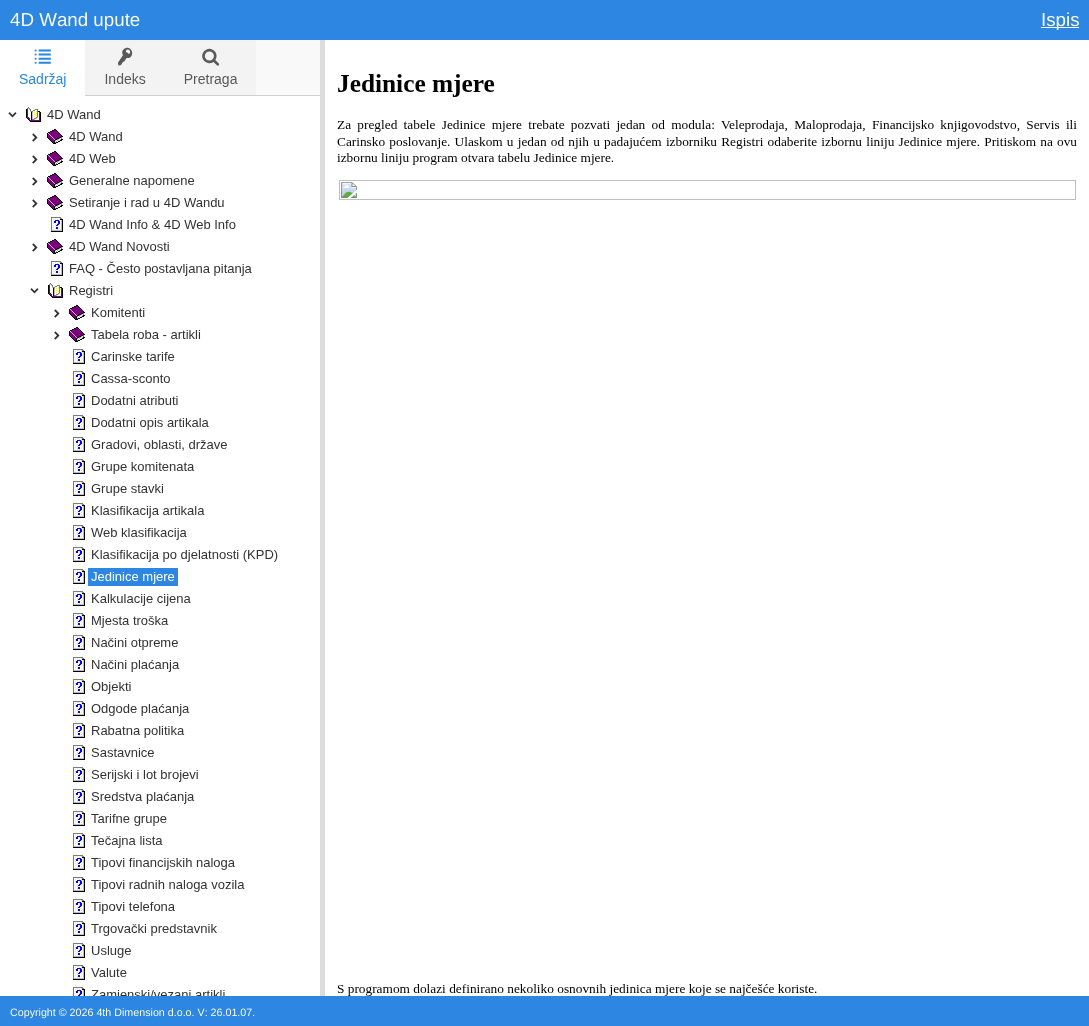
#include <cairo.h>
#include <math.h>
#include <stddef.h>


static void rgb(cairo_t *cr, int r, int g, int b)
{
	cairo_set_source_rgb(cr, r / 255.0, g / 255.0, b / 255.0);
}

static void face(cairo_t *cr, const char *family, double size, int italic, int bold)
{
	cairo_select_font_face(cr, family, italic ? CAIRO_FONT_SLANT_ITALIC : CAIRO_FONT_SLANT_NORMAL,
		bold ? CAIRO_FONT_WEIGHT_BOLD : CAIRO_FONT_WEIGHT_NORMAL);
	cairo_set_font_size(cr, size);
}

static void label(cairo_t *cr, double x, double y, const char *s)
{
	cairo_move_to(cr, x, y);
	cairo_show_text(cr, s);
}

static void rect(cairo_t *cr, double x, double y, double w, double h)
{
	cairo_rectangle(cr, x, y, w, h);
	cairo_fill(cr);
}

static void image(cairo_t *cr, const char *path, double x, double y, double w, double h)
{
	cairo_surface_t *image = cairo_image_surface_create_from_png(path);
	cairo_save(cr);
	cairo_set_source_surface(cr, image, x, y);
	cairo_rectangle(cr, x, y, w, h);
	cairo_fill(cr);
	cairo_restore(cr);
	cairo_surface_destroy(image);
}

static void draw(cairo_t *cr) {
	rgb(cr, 255, 255, 255);
	cairo_paint(cr);
	rgb(cr, 45, 135, 226);
	rect(cr, 0, 0, 1089, 40);
	face(cr, "Liberation Sans", 18.75, 0, 0);
	rgb(cr, 255, 255, 255);
	label(cr, 10, 26, "4D Wand upute");
	rect(cr, 1041, 27, 38, 1);
	label(cr, 1041, 26, "Ispis");
	image(cr, "image0.png", 8, 40, 312, 956);
	image(cr, "image1.png", 337, 74, 740, 922);
	rgb(cr, 221, 221, 221);
	rect(cr, 320, 40, 5, 956);
	rgb(cr, 45, 135, 226);
	rect(cr, 0, 996, 1089, 30);
	face(cr, "Liberation Sans", 10.7, 0, 0);
	rgb(cr, 255, 255, 255);
	label(cr, 10, 1016, "Copyright © 2026 4th Dimension d.o.o. V: 26.01.07.");
}

int main(void) {
	cairo_surface_t *surface = cairo_image_surface_create(CAIRO_FORMAT_RGB24, 1089, 1026);
	cairo_t *cr = cairo_create(surface);
	cairo_font_options_t *options = cairo_font_options_create();
	cairo_font_options_set_hint_metrics(options, CAIRO_HINT_METRICS_OFF);
	cairo_font_options_set_hint_style(options, CAIRO_HINT_STYLE_NONE);
	cairo_set_font_options(cr, options);
	cairo_set_miter_limit(cr, 4);
	draw(cr);
	cairo_surface_write_to_png(surface, "render.png");
	cairo_font_options_destroy(options);
	cairo_destroy(cr);
	cairo_surface_destroy(surface);
	return 0;
}
